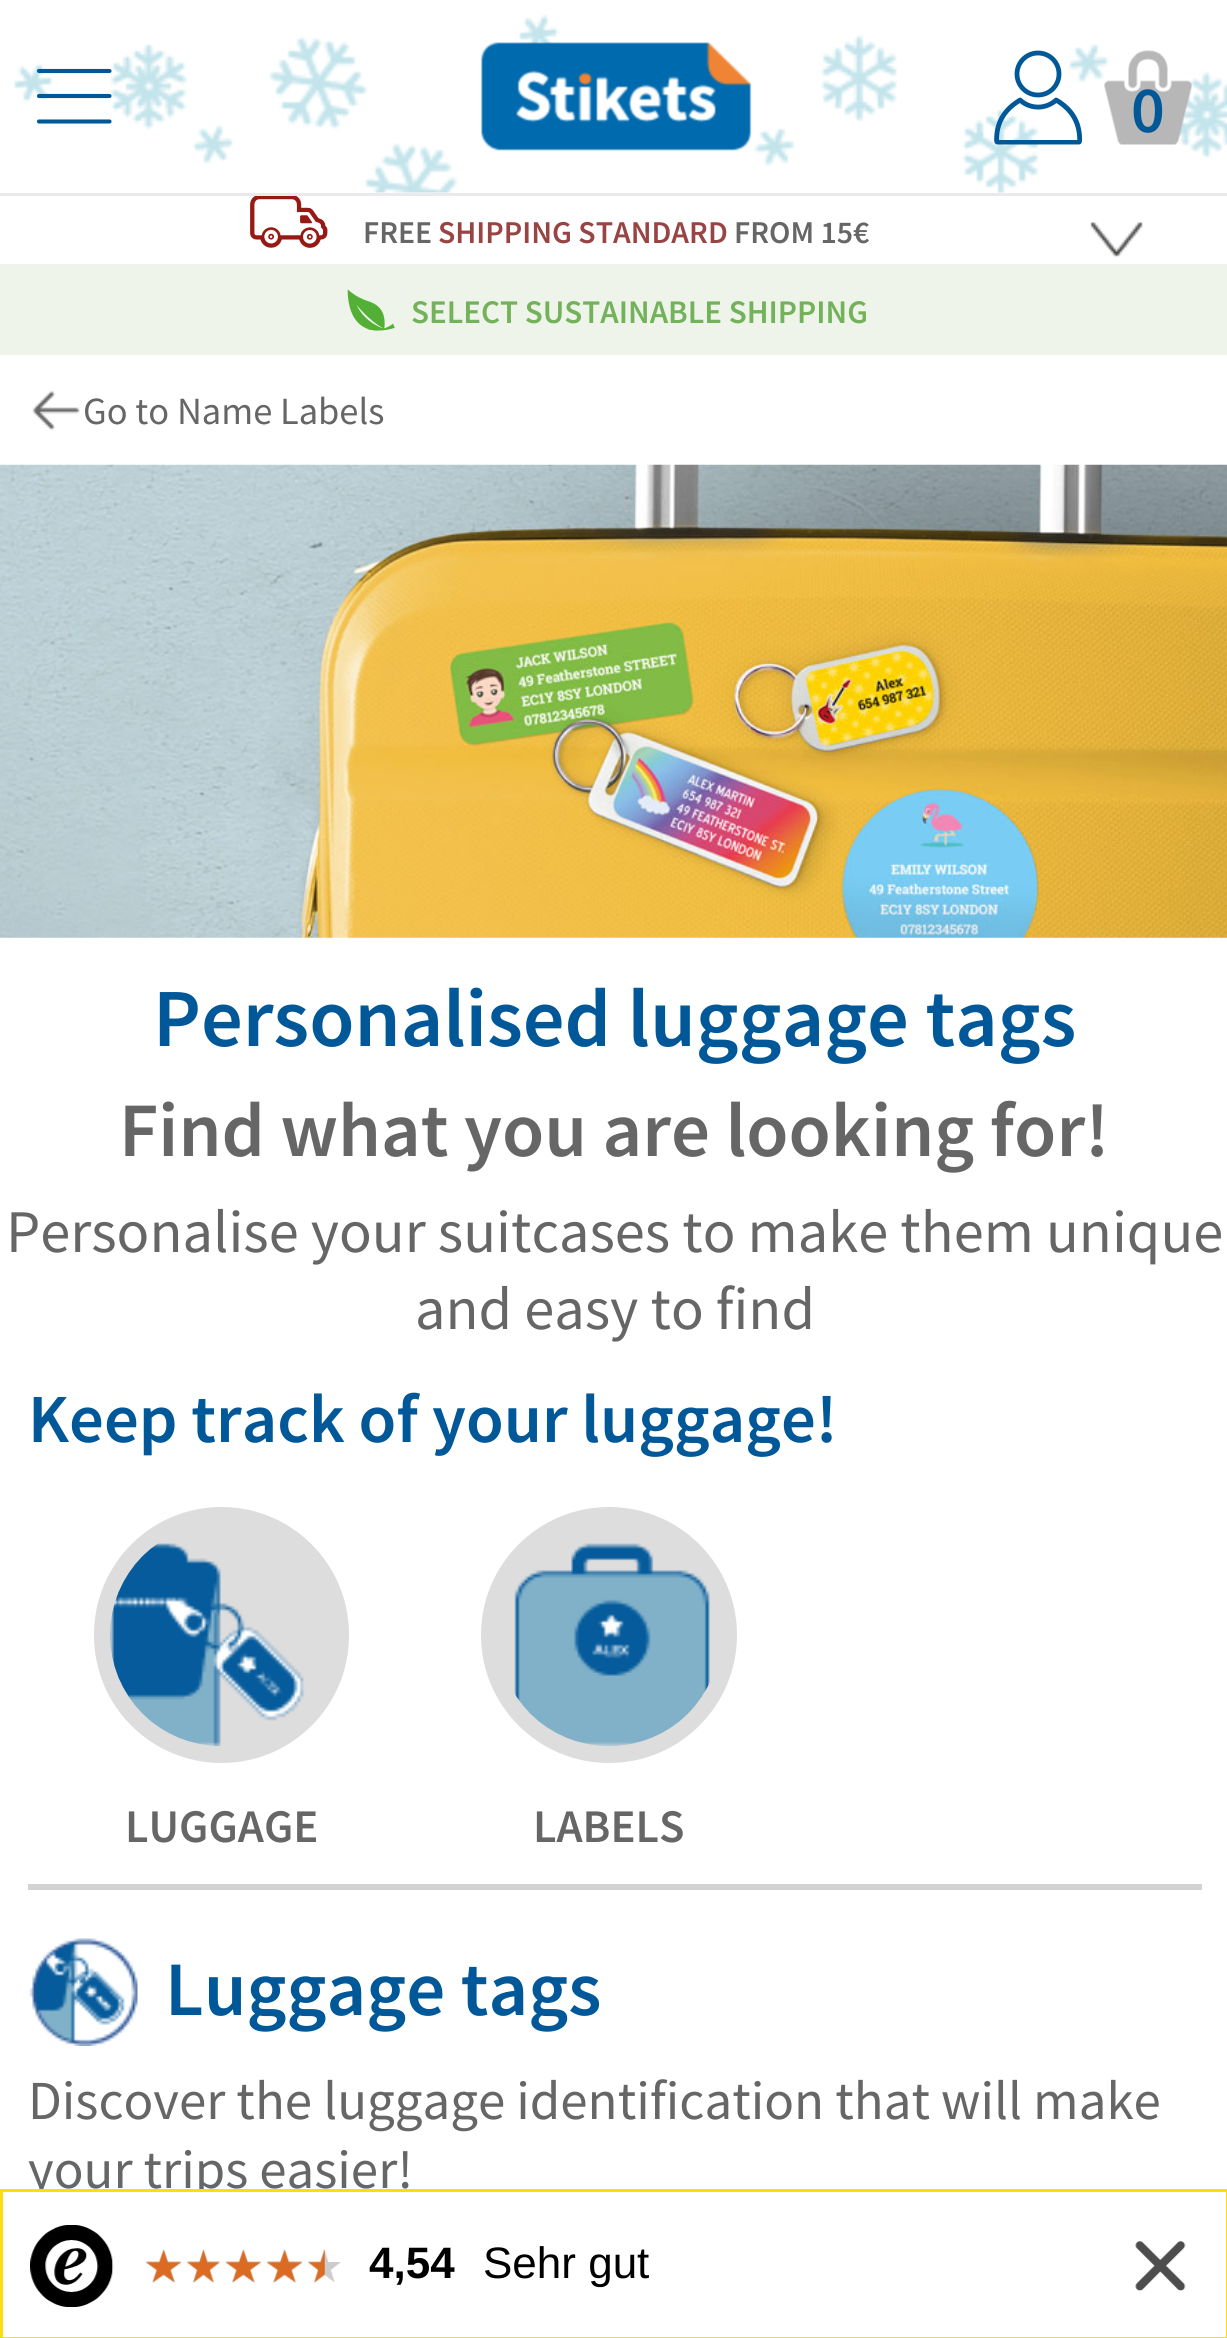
#include <cairo.h>
#include <math.h>
#include <stddef.h>


static void rgb(cairo_t *cr, int r, int g, int b)
{
	cairo_set_source_rgb(cr, r / 255.0, g / 255.0, b / 255.0);
}

static void face(cairo_t *cr, const char *family, double size, int italic, int bold)
{
	cairo_select_font_face(cr, family, italic ? CAIRO_FONT_SLANT_ITALIC : CAIRO_FONT_SLANT_NORMAL,
		bold ? CAIRO_FONT_WEIGHT_BOLD : CAIRO_FONT_WEIGHT_NORMAL);
	cairo_set_font_size(cr, size);
}

static void label(cairo_t *cr, double x, double y, const char *s)
{
	cairo_move_to(cr, x, y);
	cairo_show_text(cr, s);
}

static void rect(cairo_t *cr, double x, double y, double w, double h)
{
	cairo_rectangle(cr, x, y, w, h);
	cairo_fill(cr);
}

static void rrect(cairo_t *cr, double x, double y, double w, double h, double r)
{
	cairo_new_sub_path(cr);
	cairo_arc(cr, x + w - r, y + h - r, r, 0, M_PI / 2);
	cairo_arc(cr, x + r, y + h - r, r, M_PI / 2, M_PI);
	cairo_arc(cr, x + r, y + r, r, M_PI, 1.5 * M_PI);
	cairo_arc(cr, x + w - r, y + r, r, 1.5 * M_PI, 2 * M_PI);
	cairo_close_path(cr);
}

static void image(cairo_t *cr, const char *path, double x, double y, double w, double h)
{
	cairo_surface_t *image = cairo_image_surface_create_from_png(path);
	cairo_save(cr);
	cairo_set_source_surface(cr, image, x, y);
	cairo_rectangle(cr, x, y, w, h);
	cairo_fill(cr);
	cairo_restore(cr);
	cairo_surface_destroy(image);
}

static void draw(cairo_t *cr) {
	rgb(cr, 255, 255, 255);
	cairo_paint(cr);
	rgb(cr, 235, 233, 235);
	rect(cr, 0, 193, 1227, 3);
	image(cr, "image0.png", 14, 14, 1213, 179);
	cairo_new_path(cr);
	cairo_move_to(cr, 39, 121.5);
	cairo_line_to(cr, 109.5, 121.5);
	rgb(cr, 0, 88, 152);
	cairo_set_line_width(cr, 4.1);
	cairo_set_line_cap(cr, CAIRO_LINE_CAP_ROUND);
	cairo_stroke(cr);
	cairo_new_path(cr);
	cairo_move_to(cr, 39, 96);
	cairo_line_to(cr, 109.5, 96);
	cairo_stroke(cr);
	cairo_new_path(cr);
	cairo_move_to(cr, 39, 71);
	cairo_line_to(cr, 109.5, 71);
	cairo_stroke(cr);
	image(cr, "image1.png", 480, 42, 272, 109);
	image(cr, "image2.png", 994, 50, 89, 95);
	image(cr, "image3.png", 1104, 50, 88, 95);
	face(cr, "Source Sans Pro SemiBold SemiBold", 66, 0, 0);
	label(cr, 1131, 132, "0");
	image(cr, "image4.png", 250, 196, 78, 52);
	face(cr, "Source Sans Pro SemiBold SemiBold", 31.75, 0, 0);
	rgb(cr, 102, 102, 102);
	label(cr, 363, 243, "FREE");
	rgb(cr, 153, 68, 68);
	label(cr, 438, 243, "SHIPPING STANDARD");
	rgb(cr, 102, 102, 102);
	label(cr, 734, 243, "FROM 15€");
	image(cr, "image5.png", 1090, 222, 53, 35);
	rgb(cr, 238, 244, 233);
	rect(cr, 0, 264, 1227, 91);
	image(cr, "image6.png", 347, 289, 48, 42);
	face(cr, "Source Sans Pro SemiBold SemiBold", 33, 0, 0);
	rgb(cr, 115, 178, 90);
	label(cr, 411, 323, "SELECT SUSTAINABLE SHIPPING");
	image(cr, "image7.png", 32, 391, 48, 40);
	face(cr, "Source Sans Pro", 38.5, 0, 0);
	rgb(cr, 102, 102, 102);
	label(cr, 83, 424, "Go to Name Labels");
	image(cr, "image8.png", 0, 464, 1227, 474);
	face(cr, "Source Sans Pro SemiBold SemiBold", 82.5, 0, 0);
	rgb(cr, 0, 88, 152);
	label(cr, 153, 1046, "Personalised luggage tags");
	face(cr, "Source Sans Pro SemiBold SemiBold", 77, 0, 0);
	rgb(cr, 102, 102, 102);
	label(cr, 119, 1156, "Find what you are looking for!");
	face(cr, "Source Sans Pro", 60.5, 0, 0);
	label(cr, 6, 1252, "Personalise your suitcases to make them unique");
	label(cr, 415, 1329, "and easy to find");
	rgb(cr, 211, 211, 211);
	rect(cr, 28, 1884, 1174, 6);
	face(cr, "Source Sans Pro SemiBold SemiBold", 68.75, 0, 0);
	rgb(cr, 0, 88, 152);
	label(cr, 28, 1442, "Keep track of your luggage!");
	rgb(cr, 221, 221, 221);
	rrect(cr, 94, 1507, 255, 256, 127.5);
	cairo_fill(cr);
	image(cr, "image9.png", 110, 1543, 195, 203);
	face(cr, "Source Sans Pro SemiBold SemiBold", 46.75, 0, 0);
	rgb(cr, 102, 102, 102);
	label(cr, 125, 1842, "LUGGAGE");
	rgb(cr, 221, 221, 221);
	cairo_new_path(cr);
	cairo_arc(cr, 609, 1635, 128, 0, 2 * M_PI);
	cairo_fill(cr);
	image(cr, "image10.png", 514, 1543, 196, 203);
	rgb(cr, 102, 102, 102);
	label(cr, 533, 1842, "LABELS");
	image(cr, "image11.png", 29, 1938, 109, 108);
	face(cr, "Source Sans Pro SemiBold SemiBold", 77, 0, 0);
	rgb(cr, 0, 88, 152);
	label(cr, 165, 2015, "Luggage tags");
	face(cr, "Source Sans Pro", 55, 0, 0);
	rgb(cr, 102, 102, 102);
	label(cr, 28, 2119, "Discover the luggage identification that will make");
	label(cr, 28, 2188, "your trips easier!");
	rgb(cr, 255, 255, 255);
	rect(cr, 29, 2192, 175, 8);
	cairo_rectangle(cr, 1.5, 2190.5, 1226, 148);
	rgb(cr, 255, 220, 15);
	cairo_set_line_width(cr, 3);
	cairo_set_line_cap(cr, CAIRO_LINE_CAP_BUTT);
	cairo_stroke(cr);
	image(cr, "image12.png", 30, 2225, 84, 82);
	image(cr, "image18.png", 146, 2250, 36, 32);
	image(cr, "image13.png", 145, 2249, 37, 34);
	image(cr, "image19.png", 187, 2249, 33, 34);
	image(cr, "image14.png", 187, 2249, 33, 34);
	image(cr, "image20.png", 225, 2250, 37, 32);
	image(cr, "image15.png", 225, 2249, 36, 34);
	image(cr, "image21.png", 267, 2249, 35, 34);
	image(cr, "image16.png", 267, 2249, 36, 34);
	image(cr, "image22.png", 308, 2250, 33, 32);
	image(cr, "image17.png", 308, 2249, 17, 34);
	face(cr, "Liberation Sans", 44, 0, 1);
	rgb(cr, 0, 0, 0);
	label(cr, 369, 2278, "4,54");
	face(cr, "Liberation Sans", 44, 0, 0);
	label(cr, 483, 2278, "Sehr gut");
	image(cr, "image23.png", 1135, 2241, 51, 50);
}

int main(void) {
	cairo_surface_t *surface = cairo_image_surface_create(CAIRO_FORMAT_RGB24, 1227, 2338);
	cairo_t *cr = cairo_create(surface);
	cairo_font_options_t *options = cairo_font_options_create();
	cairo_font_options_set_hint_metrics(options, CAIRO_HINT_METRICS_OFF);
	cairo_font_options_set_hint_style(options, CAIRO_HINT_STYLE_NONE);
	cairo_set_font_options(cr, options);
	cairo_set_miter_limit(cr, 4);
	draw(cr);
	cairo_surface_write_to_png(surface, "render.png");
	cairo_font_options_destroy(options);
	cairo_destroy(cr);
	cairo_surface_destroy(surface);
	return 0;
}
